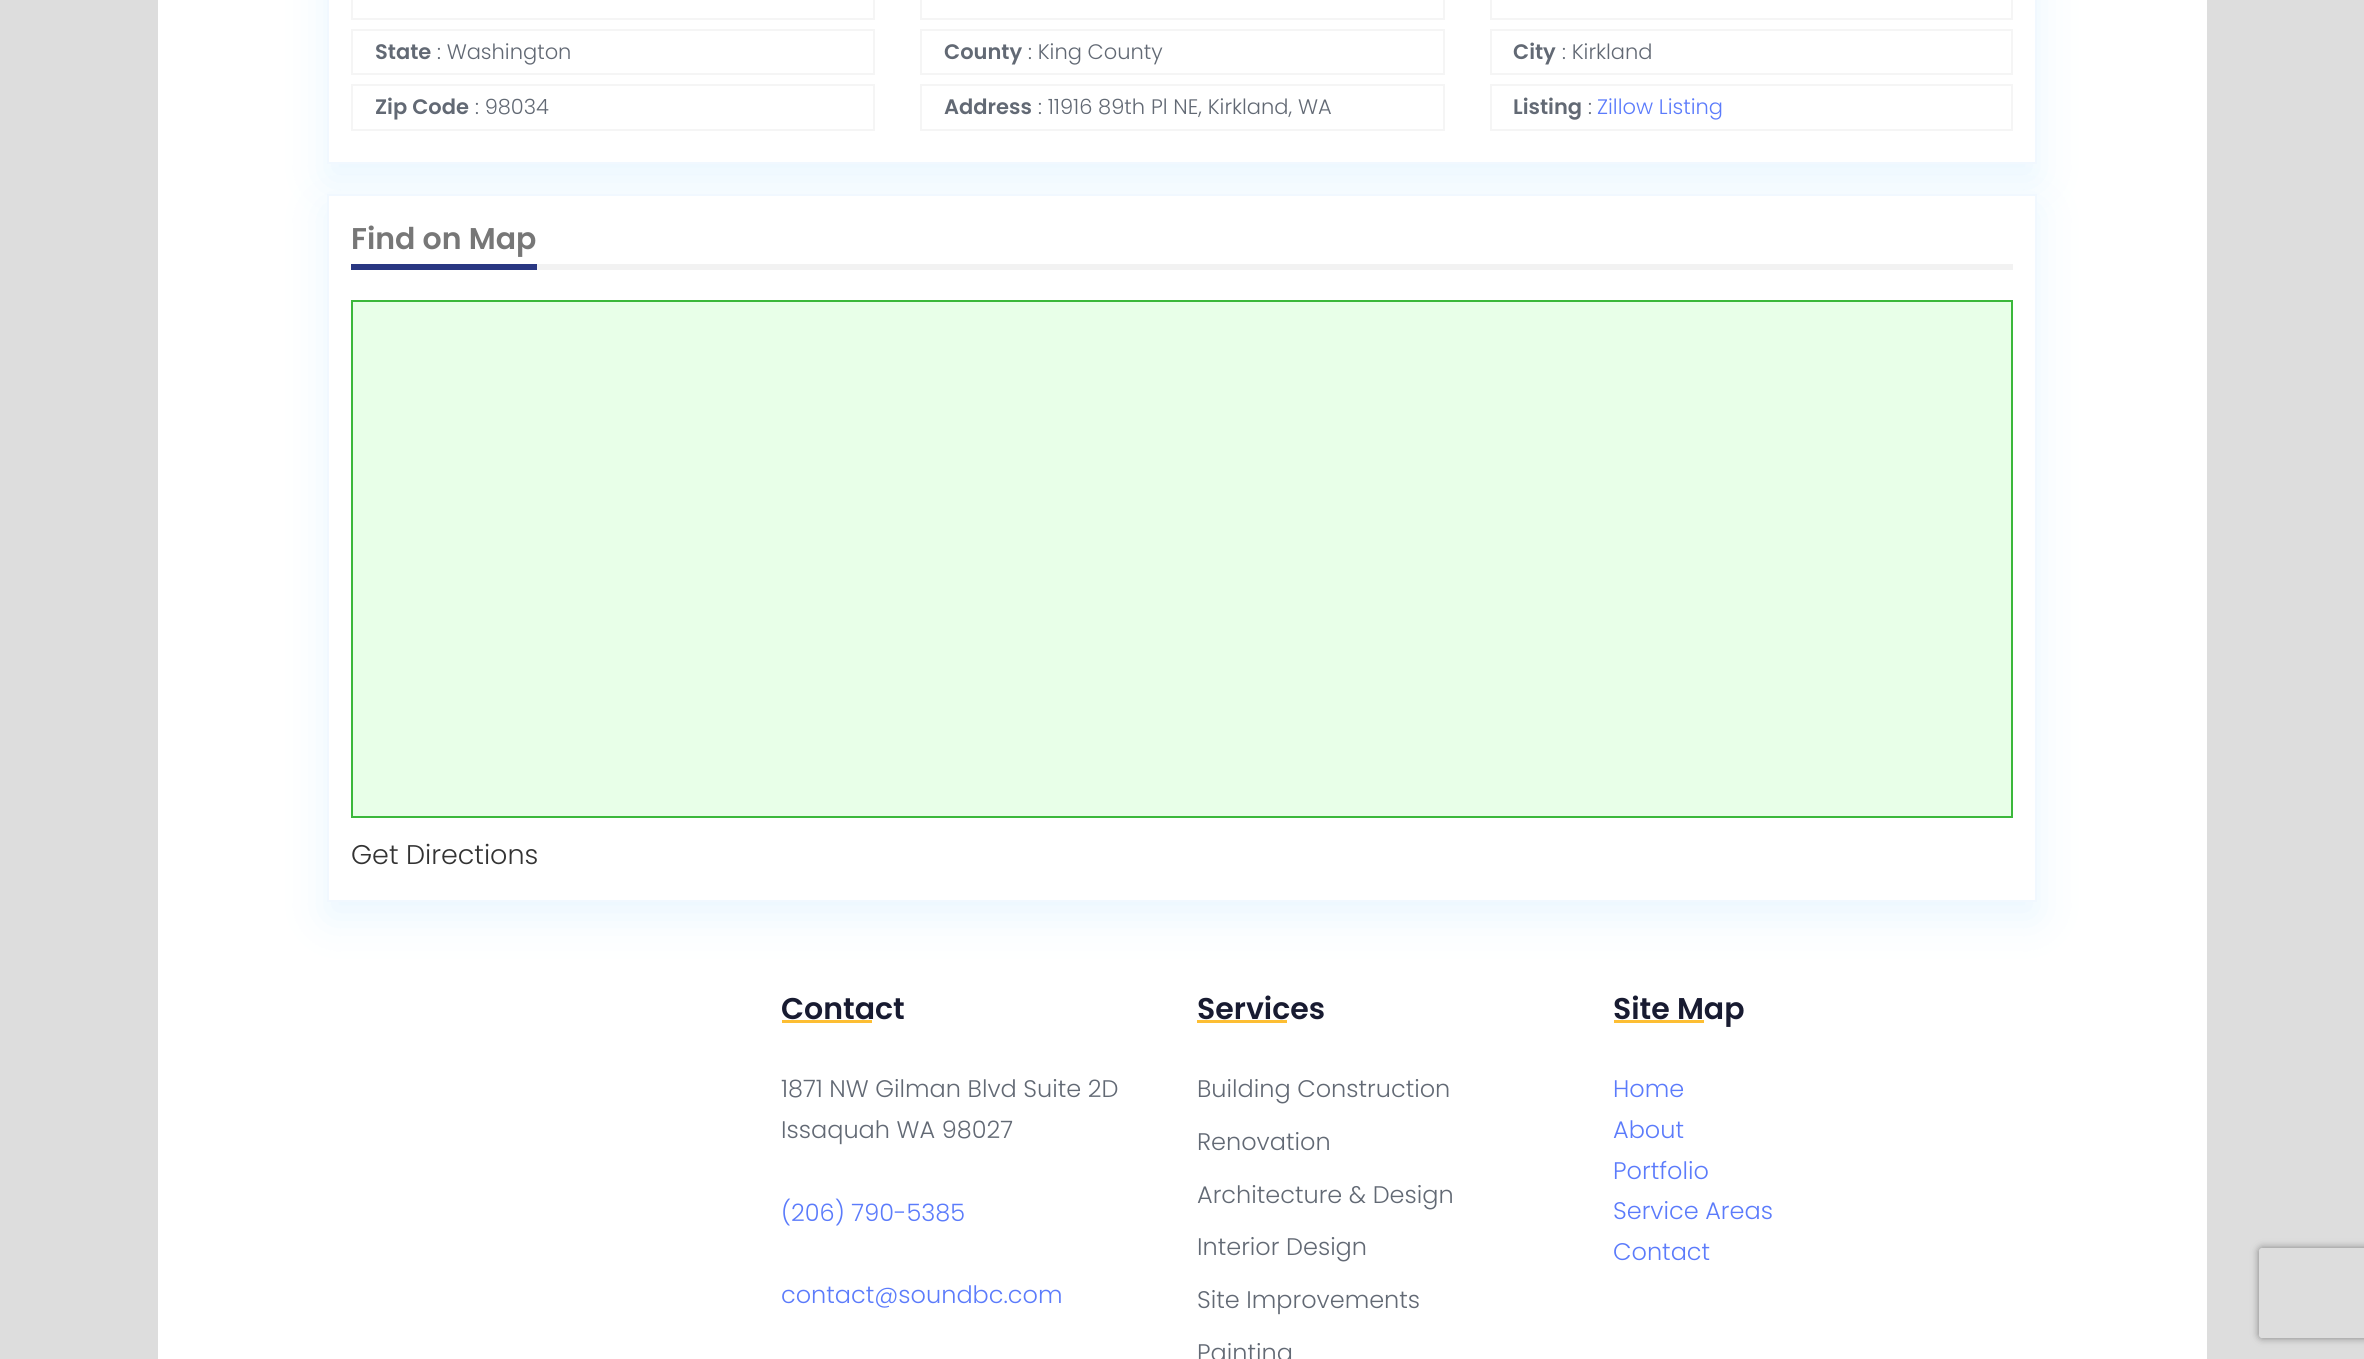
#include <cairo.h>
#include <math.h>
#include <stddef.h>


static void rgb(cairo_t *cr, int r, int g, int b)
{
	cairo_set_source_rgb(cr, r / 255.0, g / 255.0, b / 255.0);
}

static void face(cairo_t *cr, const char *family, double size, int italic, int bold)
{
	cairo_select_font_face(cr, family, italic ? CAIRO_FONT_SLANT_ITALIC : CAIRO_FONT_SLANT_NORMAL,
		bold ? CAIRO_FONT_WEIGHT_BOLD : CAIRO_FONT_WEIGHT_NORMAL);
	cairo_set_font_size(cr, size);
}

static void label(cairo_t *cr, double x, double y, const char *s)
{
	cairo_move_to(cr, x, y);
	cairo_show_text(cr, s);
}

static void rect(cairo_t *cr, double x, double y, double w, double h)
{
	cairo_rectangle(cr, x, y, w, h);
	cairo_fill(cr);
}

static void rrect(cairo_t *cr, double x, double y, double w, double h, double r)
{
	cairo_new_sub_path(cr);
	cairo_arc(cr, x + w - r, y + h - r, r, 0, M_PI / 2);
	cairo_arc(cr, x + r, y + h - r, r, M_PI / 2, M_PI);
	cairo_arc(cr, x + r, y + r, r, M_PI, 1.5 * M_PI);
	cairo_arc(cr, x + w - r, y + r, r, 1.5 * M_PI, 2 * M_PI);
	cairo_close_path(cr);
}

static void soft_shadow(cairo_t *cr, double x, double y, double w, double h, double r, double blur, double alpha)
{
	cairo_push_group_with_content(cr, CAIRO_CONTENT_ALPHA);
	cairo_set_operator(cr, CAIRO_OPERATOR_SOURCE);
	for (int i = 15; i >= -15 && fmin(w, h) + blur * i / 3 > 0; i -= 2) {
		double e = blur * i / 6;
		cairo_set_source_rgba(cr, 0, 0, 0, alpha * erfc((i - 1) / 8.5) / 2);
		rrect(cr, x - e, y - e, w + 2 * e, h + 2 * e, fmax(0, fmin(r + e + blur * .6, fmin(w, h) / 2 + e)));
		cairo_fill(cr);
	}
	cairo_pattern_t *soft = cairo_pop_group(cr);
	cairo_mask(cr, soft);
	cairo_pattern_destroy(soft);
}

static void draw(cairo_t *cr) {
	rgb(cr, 221, 221, 221);
	cairo_paint(cr);
	rgb(cr, 255, 255, 255);
	rect(cr, 158, 0, 2049, 1359);
	rgb(cr, 7, 152, 255);
	soft_shadow(cr, 327, -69, 1710, 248, 0, 23, 0.09);
	rgb(cr, 255, 255, 255);
	cairo_rectangle(cr, 328, -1, 1708, 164);
	cairo_fill_preserve(cr);
	rgb(cr, 241, 248, 255);
	cairo_stroke(cr);
	cairo_rectangle(cr, 352, -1, 522, 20);
	rgb(cr, 245, 245, 245);
	cairo_stroke(cr);
	cairo_rectangle(cr, 921, -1, 523, 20);
	cairo_stroke(cr);
	cairo_rectangle(cr, 1491, -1, 521, 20);
	cairo_stroke(cr);
	cairo_rectangle(cr, 352, 30, 522, 44);
	cairo_stroke(cr);
	face(cr, "Poppins SemiBold", 21, 0, 0);
	rgb(cr, 98, 105, 116);
	label(cr, 375, 59, "State");
	face(cr, "Poppins Light", 21, 0, 0);
	label(cr, 437, 59, ": Washington");
	cairo_rectangle(cr, 921, 30, 523, 44);
	rgb(cr, 245, 245, 245);
	cairo_stroke(cr);
	face(cr, "Poppins SemiBold", 21, 0, 0);
	rgb(cr, 98, 105, 116);
	label(cr, 944, 59, "County");
	face(cr, "Poppins Light", 21, 0, 0);
	label(cr, 1028, 59, ": King County");
	cairo_rectangle(cr, 1491, 30, 521, 44);
	rgb(cr, 245, 245, 245);
	cairo_stroke(cr);
	face(cr, "Poppins SemiBold", 21, 0, 0);
	rgb(cr, 98, 105, 116);
	label(cr, 1513, 59, "City");
	face(cr, "Poppins Light", 21, 0, 0);
	label(cr, 1562, 59, ": Kirkland");
	cairo_rectangle(cr, 352, 85, 522, 45);
	rgb(cr, 245, 245, 245);
	cairo_stroke(cr);
	face(cr, "Poppins SemiBold", 21, 0, 0);
	rgb(cr, 98, 105, 116);
	label(cr, 375, 114, "Zip Code");
	face(cr, "Poppins Light", 21, 0, 0);
	label(cr, 475, 114, ": 98034");
	cairo_rectangle(cr, 921, 85, 523, 45);
	rgb(cr, 245, 245, 245);
	cairo_stroke(cr);
	face(cr, "Poppins SemiBold", 21, 0, 0);
	rgb(cr, 98, 105, 116);
	label(cr, 944, 114, "Address");
	face(cr, "Poppins Light", 21, 0, 0);
	label(cr, 1038, 114, ": 11916 89th Pl NE, Kirkland, WA");
	cairo_rectangle(cr, 1491, 85, 521, 45);
	rgb(cr, 245, 245, 245);
	cairo_stroke(cr);
	face(cr, "Poppins SemiBold", 21, 0, 0);
	rgb(cr, 98, 105, 116);
	label(cr, 1513, 114, "Listing");
	face(cr, "Poppins Light", 21, 0, 0);
	label(cr, 1588, 114, ":");
	rgb(cr, 91, 123, 251);
	label(cr, 1597, 114, "Zillow Listing");
	rgb(cr, 7, 152, 255);
	soft_shadow(cr, 327, 209, 1710, 708, 0, 23, 0.09);
	rgb(cr, 255, 255, 255);
	cairo_rectangle(cr, 328, 195, 1708, 706);
	cairo_fill_preserve(cr);
	rgb(cr, 241, 248, 255);
	cairo_stroke(cr);
	rgb(cr, 242, 242, 242);
	rect(cr, 537, 264, 1476, 6);
	rgb(cr, 41, 55, 130);
	rect(cr, 351, 264, 186, 6);
	face(cr, "Poppins SemiBold", 30, 0, 0);
	rgb(cr, 119, 119, 119);
	label(cr, 351, 249, "Find on Map");
	rgb(cr, 232, 255, 232);
	cairo_rectangle(cr, 352, 301, 1660, 516);
	cairo_fill_preserve(cr);
	rgb(cr, 59, 184, 59);
	cairo_stroke(cr);
	face(cr, "Poppins Light", 27, 0, 0);
	rgb(cr, 51, 51, 51);
	label(cr, 351, 864, "Get Directions");
	face(cr, "Poppins SemiBold", 30, 0, 0);
	rgb(cr, 24, 27, 49);
	label(cr, 781, 1019, "Contact");
	rgb(cr, 253, 190, 51);
	rect(cr, 782, 1020, 90, 3);
	face(cr, "Poppins Light", 24, 0, 0);
	rgb(cr, 98, 105, 116);
	label(cr, 781, 1097, "1871 NW Gilman Blvd Suite 2D");
	label(cr, 781, 1138, "Issaquah WA 98027");
	rgb(cr, 91, 123, 251);
	label(cr, 781, 1221, "(206) 790-5385");
	label(cr, 781, 1303, "contact@soundbc.com");
	face(cr, "Poppins SemiBold", 30, 0, 0);
	rgb(cr, 24, 27, 49);
	label(cr, 1197, 1019, "Services");
	rgb(cr, 253, 190, 51);
	rect(cr, 1197, 1020, 90, 3);
	face(cr, "Poppins Light", 24, 0, 0);
	rgb(cr, 98, 105, 116);
	label(cr, 1197, 1097, "Building Construction");
	label(cr, 1197, 1150, "Renovation");
	label(cr, 1197, 1203, "Architecture & Design");
	label(cr, 1197, 1255, "Interior Design");
	label(cr, 1197, 1308, "Site Improvements");
	label(cr, 1197, 1361, "Painting");
	face(cr, "Poppins SemiBold", 30, 0, 0);
	rgb(cr, 24, 27, 49);
	label(cr, 1613, 1019, "Site Map");
	rgb(cr, 253, 190, 51);
	rect(cr, 1614, 1020, 90, 3);
	face(cr, "Poppins Light", 24, 0, 0);
	rgb(cr, 91, 123, 251);
	label(cr, 1613, 1097, "Home");
	label(cr, 1613, 1138, "About");
	label(cr, 1613, 1179, "Portfolio");
	label(cr, 1613, 1219, "Service Areas");
	label(cr, 1613, 1260, "Contact");
	cairo_save(cr);
	cairo_set_fill_rule(cr, CAIRO_FILL_RULE_EVEN_ODD);
	cairo_new_path(cr);
	cairo_move_to(cr, 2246, 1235);
	cairo_line_to(cr, 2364, 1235);
	cairo_line_to(cr, 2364, 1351);
	cairo_line_to(cr, 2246, 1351);
	cairo_close_path(cr);
	cairo_move_to(cr, 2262, 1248);
	cairo_line_to(cr, 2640, 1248);
	cairo_curve_to(cr, 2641.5, 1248, 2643, 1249.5, 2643, 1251);
	cairo_line_to(cr, 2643, 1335);
	cairo_curve_to(cr, 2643, 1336.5, 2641.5, 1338, 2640, 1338);
	cairo_line_to(cr, 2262, 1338);
	cairo_curve_to(cr, 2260.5, 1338, 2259, 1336.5, 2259, 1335);
	cairo_line_to(cr, 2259, 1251);
	cairo_curve_to(cr, 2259, 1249.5, 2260.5, 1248, 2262, 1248);
	cairo_close_path(cr);
	cairo_clip(cr);
	rgb(cr, 128, 128, 128);
	soft_shadow(cr, 2259, 1248, 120, 90, 3, 4, 1);
	cairo_restore(cr);
}

int main(void) {
	cairo_surface_t *surface = cairo_image_surface_create(CAIRO_FORMAT_RGB24, 2364, 1359);
	cairo_t *cr = cairo_create(surface);
	cairo_font_options_t *options = cairo_font_options_create();
	cairo_font_options_set_hint_metrics(options, CAIRO_HINT_METRICS_OFF);
	cairo_font_options_set_hint_style(options, CAIRO_HINT_STYLE_NONE);
	cairo_set_font_options(cr, options);
	cairo_set_miter_limit(cr, 4);
	draw(cr);
	cairo_surface_write_to_png(surface, "render.png");
	cairo_font_options_destroy(options);
	cairo_destroy(cr);
	cairo_surface_destroy(surface);
	return 0;
}
